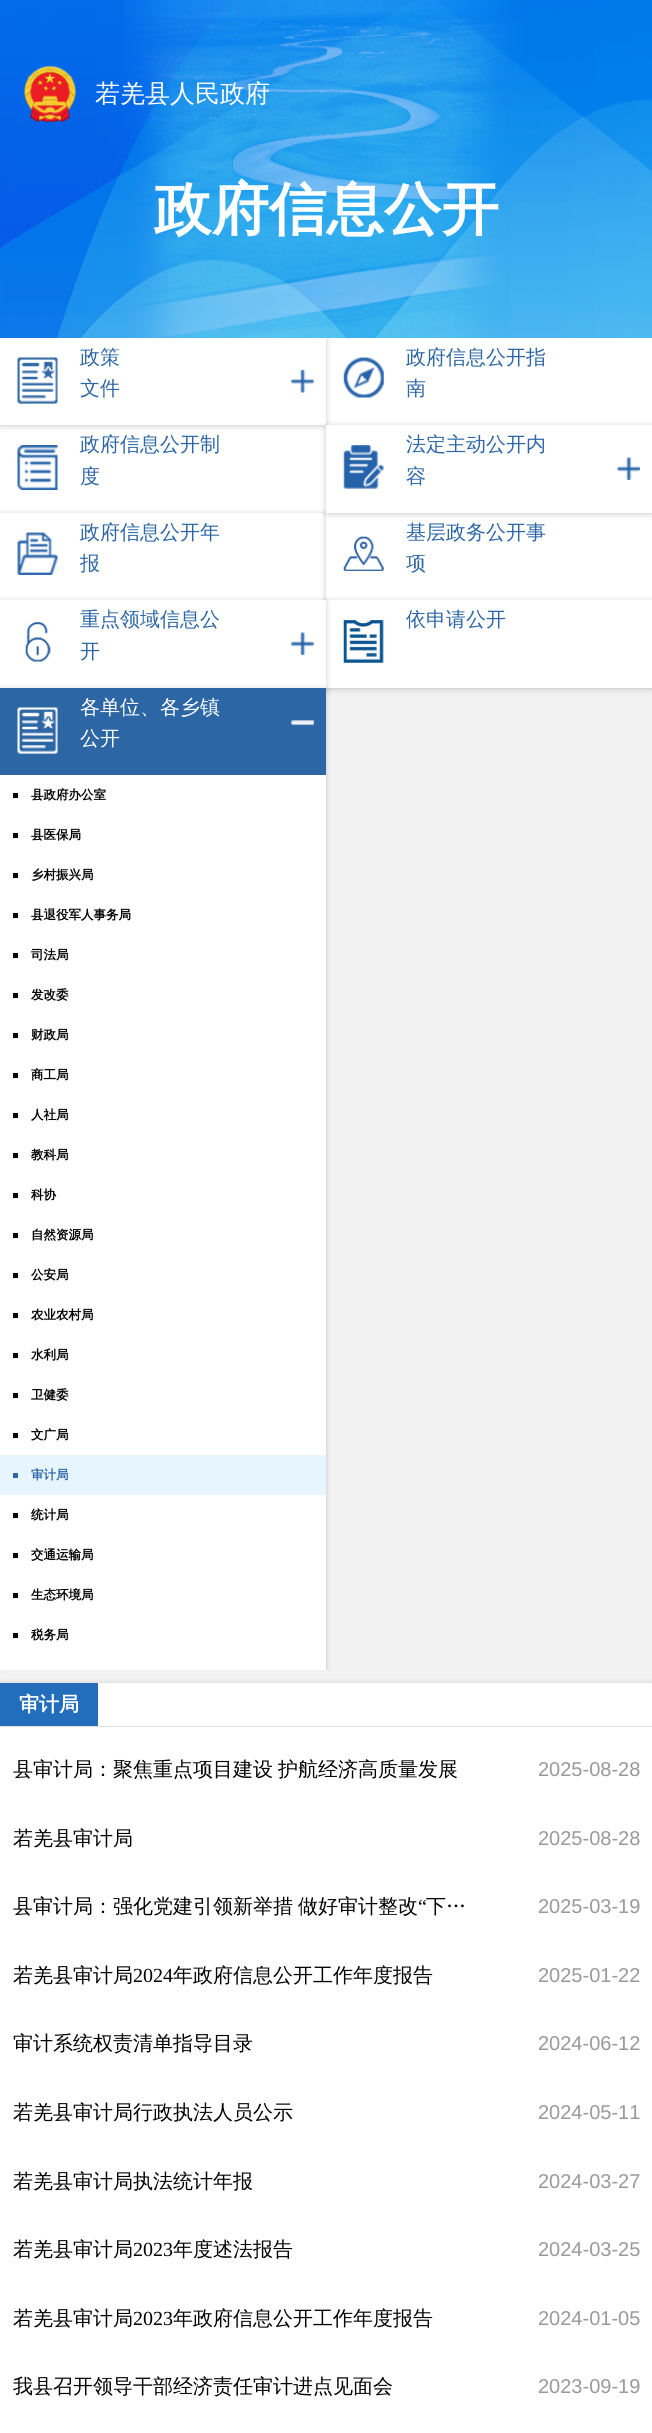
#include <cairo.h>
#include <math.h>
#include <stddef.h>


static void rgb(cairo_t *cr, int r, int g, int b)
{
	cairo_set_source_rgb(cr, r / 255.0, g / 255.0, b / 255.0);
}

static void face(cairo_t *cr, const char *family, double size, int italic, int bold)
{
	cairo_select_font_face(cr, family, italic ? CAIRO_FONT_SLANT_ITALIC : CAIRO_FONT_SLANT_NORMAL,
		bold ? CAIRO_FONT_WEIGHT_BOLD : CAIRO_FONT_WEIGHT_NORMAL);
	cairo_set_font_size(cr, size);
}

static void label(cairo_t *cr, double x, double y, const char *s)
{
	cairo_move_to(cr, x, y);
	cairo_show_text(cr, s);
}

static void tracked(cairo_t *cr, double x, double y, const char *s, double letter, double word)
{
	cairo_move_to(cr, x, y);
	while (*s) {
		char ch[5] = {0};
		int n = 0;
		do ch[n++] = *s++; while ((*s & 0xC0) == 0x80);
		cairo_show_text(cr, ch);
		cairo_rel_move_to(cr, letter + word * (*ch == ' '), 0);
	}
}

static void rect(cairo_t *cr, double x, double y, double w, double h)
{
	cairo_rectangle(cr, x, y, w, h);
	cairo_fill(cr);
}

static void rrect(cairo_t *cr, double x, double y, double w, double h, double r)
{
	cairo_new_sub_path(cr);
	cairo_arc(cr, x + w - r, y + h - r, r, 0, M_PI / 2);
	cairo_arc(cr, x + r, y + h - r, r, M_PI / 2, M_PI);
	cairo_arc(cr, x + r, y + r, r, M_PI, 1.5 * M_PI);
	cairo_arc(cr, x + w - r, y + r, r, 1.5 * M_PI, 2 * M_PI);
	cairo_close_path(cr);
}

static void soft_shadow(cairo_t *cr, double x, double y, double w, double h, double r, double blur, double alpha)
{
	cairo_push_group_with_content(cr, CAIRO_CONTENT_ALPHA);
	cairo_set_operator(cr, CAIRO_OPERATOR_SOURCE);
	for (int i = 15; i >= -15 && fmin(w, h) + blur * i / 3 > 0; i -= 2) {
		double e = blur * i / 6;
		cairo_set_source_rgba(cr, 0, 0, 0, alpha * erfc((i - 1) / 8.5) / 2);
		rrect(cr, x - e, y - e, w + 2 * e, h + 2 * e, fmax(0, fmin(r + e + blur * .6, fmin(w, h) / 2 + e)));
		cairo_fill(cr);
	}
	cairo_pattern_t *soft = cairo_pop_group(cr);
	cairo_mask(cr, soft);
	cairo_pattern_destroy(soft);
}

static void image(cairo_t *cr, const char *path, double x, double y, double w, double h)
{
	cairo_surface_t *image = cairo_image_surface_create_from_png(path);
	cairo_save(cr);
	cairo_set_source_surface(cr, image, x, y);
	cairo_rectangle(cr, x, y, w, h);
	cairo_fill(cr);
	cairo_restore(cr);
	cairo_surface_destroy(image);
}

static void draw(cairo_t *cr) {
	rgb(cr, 255, 255, 255);
	cairo_paint(cr);
	image(cr, "image0.png", 0, 0, 652, 338);
	image(cr, "image1.png", 24, 66, 53, 57);
	face(cr, "WenQuanYi Zen Hei Medium", 25, 0, 0);
	rgb(cr, 255, 255, 255);
	label(cr, 95, 102, "若羌县人民政府");
	face(cr, "WenQuanYi Zen Hei", 57.5, 0, 1);
	label(cr, 154, 229, "政府信息公开");
	rgb(cr, 242, 242, 242);
	rect(cr, 0, 688, 652, 995);
	rgb(cr, 0, 0, 0);
	soft_shadow(cr, 0, 426, 326, 88, 0, 3, 0.2);
	rgb(cr, 255, 255, 255);
	rect(cr, 0, 425, 326, 88);
	cairo_save(cr);
	cairo_rectangle(cr, 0, 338, 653, 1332);
	cairo_clip(cr);
	rgb(cr, 0, 0, 0);
	soft_shadow(cr, 0, 339, 326, 87, 0, 3, 0.2);
	cairo_restore(cr);
	rect(cr, 0, 338, 326, 87);
	image(cr, "image2.png", 17, 357, 41, 47);
	face(cr, "WenQuanYi Zen Hei Medium", 20, 0, 0);
	rgb(cr, 45, 102, 165);
	label(cr, 80, 364, "政策");
	label(cr, 80, 395, "文件");
	image(cr, "image3.png", 291, 370, 23, 23);
	image(cr, "image4.png", 343, 357, 41, 41);
	label(cr, 406, 364, "政府信息公开指");
	label(cr, 406, 395, "南");
	image(cr, "image5.png", 17, 445, 41, 45);
	label(cr, 80, 451, "政府信息公开制");
	label(cr, 80, 483, "度");
	rgb(cr, 0, 0, 0);
	soft_shadow(cr, 0, 514, 326, 87, 0, 3, 0.2);
	rgb(cr, 255, 255, 255);
	rect(cr, 0, 513, 326, 87);
	rgb(cr, 0, 0, 0);
	soft_shadow(cr, 326, 514, 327, 87, 0, 3, 0.2);
	rgb(cr, 255, 255, 255);
	rect(cr, 326, 513, 326, 87);
	rgb(cr, 0, 0, 0);
	soft_shadow(cr, 326, 426, 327, 88, 0, 3, 0.2);
	rgb(cr, 255, 255, 255);
	rect(cr, 326, 425, 326, 88);
	image(cr, "image6.png", 343, 445, 41, 44);
	rgb(cr, 45, 102, 165);
	label(cr, 406, 451, "法定主动公开内");
	label(cr, 406, 483, "容");
	image(cr, "image7.png", 617, 457, 23, 23);
	image(cr, "image8.png", 17, 532, 41, 43);
	label(cr, 80, 539, "政府信息公开年");
	label(cr, 80, 570, "报");
	image(cr, "image9.png", 343, 536, 41, 35);
	label(cr, 406, 539, "基层政务公开事");
	label(cr, 406, 570, "项");
	rgb(cr, 0, 0, 0);
	soft_shadow(cr, 326, 601, 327, 88, 0, 3, 0.2);
	rgb(cr, 255, 255, 255);
	rect(cr, 326, 600, 326, 88);
	rgb(cr, 0, 0, 0);
	soft_shadow(cr, 0, 601, 326, 88, 0, 3, 0.2);
	rgb(cr, 255, 255, 255);
	rect(cr, 0, 600, 326, 88);
	image(cr, "image10.png", 25, 622, 26, 40);
	rgb(cr, 45, 102, 165);
	label(cr, 80, 626, "重点领域信息公");
	label(cr, 80, 658, "开");
	image(cr, "image11.png", 291, 632, 23, 23);
	image(cr, "image12.png", 343, 620, 41, 43);
	label(cr, 406, 626, "依申请公开");
	cairo_save(cr);
	cairo_rectangle(cr, 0, 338, 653, 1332);
	cairo_clip(cr);
	rgb(cr, 0, 0, 0);
	soft_shadow(cr, 0, 689, 326, 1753, 0, 3, 0.2);
	cairo_restore(cr);
	rgb(cr, 255, 255, 255);
	rect(cr, 0, 775, 326, 895);
	rgb(cr, 45, 102, 165);
	rect(cr, 0, 688, 326, 87);
	image(cr, "image13.png", 17, 707, 41, 47);
	rgb(cr, 255, 255, 255);
	label(cr, 80, 714, "各单位、各乡镇");
	label(cr, 80, 745, "公开");
	image(cr, "image14.png", 291, 720, 23, 5);
	rgb(cr, 0, 0, 0);
	rect(cr, 13, 793, 5, 5);
	face(cr, "WenQuanYi Zen Hei", 12.5, 0, 1);
	label(cr, 31, 799, "县政府办公室");
	rect(cr, 13, 833, 5, 5);
	label(cr, 31, 839, "县医保局");
	rect(cr, 13, 873, 5, 5);
	label(cr, 31, 879, "乡村振兴局");
	rect(cr, 13, 913, 5, 5);
	label(cr, 31, 919, "县退役军人事务局");
	rect(cr, 13, 953, 5, 5);
	label(cr, 31, 959, "司法局");
	rect(cr, 13, 993, 5, 5);
	label(cr, 31, 999, "发改委");
	rect(cr, 13, 1033, 5, 5);
	label(cr, 31, 1039, "财政局");
	rect(cr, 13, 1073, 5, 5);
	label(cr, 31, 1079, "商工局");
	rect(cr, 13, 1113, 5, 5);
	label(cr, 31, 1119, "人社局");
	rect(cr, 13, 1153, 5, 5);
	label(cr, 31, 1159, "教科局");
	rect(cr, 13, 1193, 5, 5);
	label(cr, 31, 1199, "科协");
	rect(cr, 13, 1233, 5, 5);
	label(cr, 31, 1239, "自然资源局");
	rect(cr, 13, 1273, 5, 5);
	label(cr, 31, 1279, "公安局");
	rect(cr, 13, 1313, 5, 5);
	label(cr, 31, 1319, "农业农村局");
	rect(cr, 13, 1353, 5, 5);
	label(cr, 31, 1359, "水利局");
	rect(cr, 13, 1393, 5, 5);
	label(cr, 31, 1399, "卫健委");
	rect(cr, 13, 1433, 5, 5);
	label(cr, 31, 1439, "文广局");
	rgb(cr, 230, 245, 255);
	rect(cr, 0, 1455, 326, 40);
	rgb(cr, 45, 102, 165);
	rect(cr, 13, 1473, 5, 5);
	label(cr, 31, 1479, "审计局");
	rgb(cr, 0, 0, 0);
	rect(cr, 13, 1513, 5, 5);
	label(cr, 31, 1519, "统计局");
	rect(cr, 13, 1553, 5, 5);
	label(cr, 31, 1559, "交通运输局");
	rect(cr, 13, 1593, 5, 5);
	label(cr, 31, 1599, "生态环境局");
	rect(cr, 13, 1633, 5, 5);
	label(cr, 31, 1639, "税务局");
	rgb(cr, 0, 0, 0);
	soft_shadow(cr, 0, 1684, 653, 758, 0, 3, 0.2);
	rgb(cr, 255, 255, 255);
	rect(cr, 0, 1683, 652, 750);
	rgb(cr, 224, 224, 224);
	rect(cr, 0, 1726, 652, 1);
	rgb(cr, 34, 110, 188);
	rect(cr, 0, 1683, 98, 43);
	face(cr, "WenQuanYi Zen Hei", 20, 0, 1);
	rgb(cr, 255, 255, 255);
	label(cr, 19, 1711, "审计局");
	face(cr, "WenQuanYi Zen Hei Medium", 20, 0, 0);
	rgb(cr, 0, 0, 0);
	tracked(cr, 13, 1776, "县审计局：聚焦重点项目建设 护航经济高质量发展", 0, -1);
	face(cr, "Liberation Sans", 20, 0, 0);
	rgb(cr, 153, 153, 153);
	label(cr, 538, 1776, "2025-08-28");
	face(cr, "WenQuanYi Zen Hei Medium", 20, 0, 0);
	rgb(cr, 0, 0, 0);
	label(cr, 13, 1845, "若羌县审计局");
	face(cr, "Liberation Sans", 20, 0, 0);
	rgb(cr, 153, 153, 153);
	label(cr, 538, 1845, "2025-08-28");
	face(cr, "WenQuanYi Zen Hei Medium", 20, 0, 0);
	rgb(cr, 0, 0, 0);
	tracked(cr, 13, 1913, "县审计局：强化党建引领新举措 做好审计整改", 0, -1);
	face(cr, "Liberation Serif", 20, 0, 0);
	label(cr, 418, 1913, "“");
	face(cr, "WenQuanYi Zen Hei Medium", 20, 0, 0);
	label(cr, 426, 1913, "下…");
	face(cr, "Liberation Sans", 20, 0, 0);
	rgb(cr, 153, 153, 153);
	label(cr, 538, 1913, "2025-03-19");
	face(cr, "WenQuanYi Zen Hei Medium", 20, 0, 0);
	rgb(cr, 0, 0, 0);
	label(cr, 13, 1982, "若羌县审计局");
	face(cr, "Liberation Serif", 20, 0, 0);
	label(cr, 133, 1982, "2024");
	face(cr, "WenQuanYi Zen Hei Medium", 20, 0, 0);
	label(cr, 173, 1982, "年政府信息公开工作年度报告");
	face(cr, "Liberation Sans", 20, 0, 0);
	rgb(cr, 153, 153, 153);
	label(cr, 538, 1982, "2025-01-22");
	face(cr, "WenQuanYi Zen Hei Medium", 20, 0, 0);
	rgb(cr, 0, 0, 0);
	label(cr, 13, 2050, "审计系统权责清单指导目录");
	face(cr, "Liberation Sans", 20, 0, 0);
	rgb(cr, 153, 153, 153);
	label(cr, 538, 2050, "2024-06-12");
	face(cr, "WenQuanYi Zen Hei Medium", 20, 0, 0);
	rgb(cr, 0, 0, 0);
	label(cr, 13, 2119, "若羌县审计局行政执法人员公示");
	face(cr, "Liberation Sans", 20, 0, 0);
	rgb(cr, 153, 153, 153);
	label(cr, 538, 2119, "2024-05-11");
	face(cr, "WenQuanYi Zen Hei Medium", 20, 0, 0);
	rgb(cr, 0, 0, 0);
	label(cr, 13, 2188, "若羌县审计局执法统计年报");
	face(cr, "Liberation Sans", 20, 0, 0);
	rgb(cr, 153, 153, 153);
	label(cr, 538, 2188, "2024-03-27");
	face(cr, "WenQuanYi Zen Hei Medium", 20, 0, 0);
	rgb(cr, 0, 0, 0);
	label(cr, 13, 2256, "若羌县审计局");
	face(cr, "Liberation Serif", 20, 0, 0);
	label(cr, 133, 2256, "2023");
	face(cr, "WenQuanYi Zen Hei Medium", 20, 0, 0);
	label(cr, 173, 2256, "年度述法报告");
	face(cr, "Liberation Sans", 20, 0, 0);
	rgb(cr, 153, 153, 153);
	label(cr, 538, 2256, "2024-03-25");
	face(cr, "WenQuanYi Zen Hei Medium", 20, 0, 0);
	rgb(cr, 0, 0, 0);
	label(cr, 13, 2325, "若羌县审计局");
	face(cr, "Liberation Serif", 20, 0, 0);
	label(cr, 133, 2325, "2023");
	face(cr, "WenQuanYi Zen Hei Medium", 20, 0, 0);
	label(cr, 173, 2325, "年政府信息公开工作年度报告");
	face(cr, "Liberation Sans", 20, 0, 0);
	rgb(cr, 153, 153, 153);
	label(cr, 538, 2325, "2024-01-05");
	face(cr, "WenQuanYi Zen Hei Medium", 20, 0, 0);
	rgb(cr, 0, 0, 0);
	label(cr, 13, 2393, "我县召开领导干部经济责任审计进点见面会");
	face(cr, "Liberation Sans", 20, 0, 0);
	rgb(cr, 153, 153, 153);
	label(cr, 538, 2393, "2023-09-19");
}

int main(void) {
	cairo_surface_t *surface = cairo_image_surface_create(CAIRO_FORMAT_RGB24, 652, 2433);
	cairo_t *cr = cairo_create(surface);
	cairo_font_options_t *options = cairo_font_options_create();
	cairo_font_options_set_hint_metrics(options, CAIRO_HINT_METRICS_OFF);
	cairo_font_options_set_hint_style(options, CAIRO_HINT_STYLE_NONE);
	cairo_set_font_options(cr, options);
	cairo_set_miter_limit(cr, 4);
	draw(cr);
	cairo_surface_write_to_png(surface, "render.png");
	cairo_font_options_destroy(options);
	cairo_destroy(cr);
	cairo_surface_destroy(surface);
	return 0;
}
